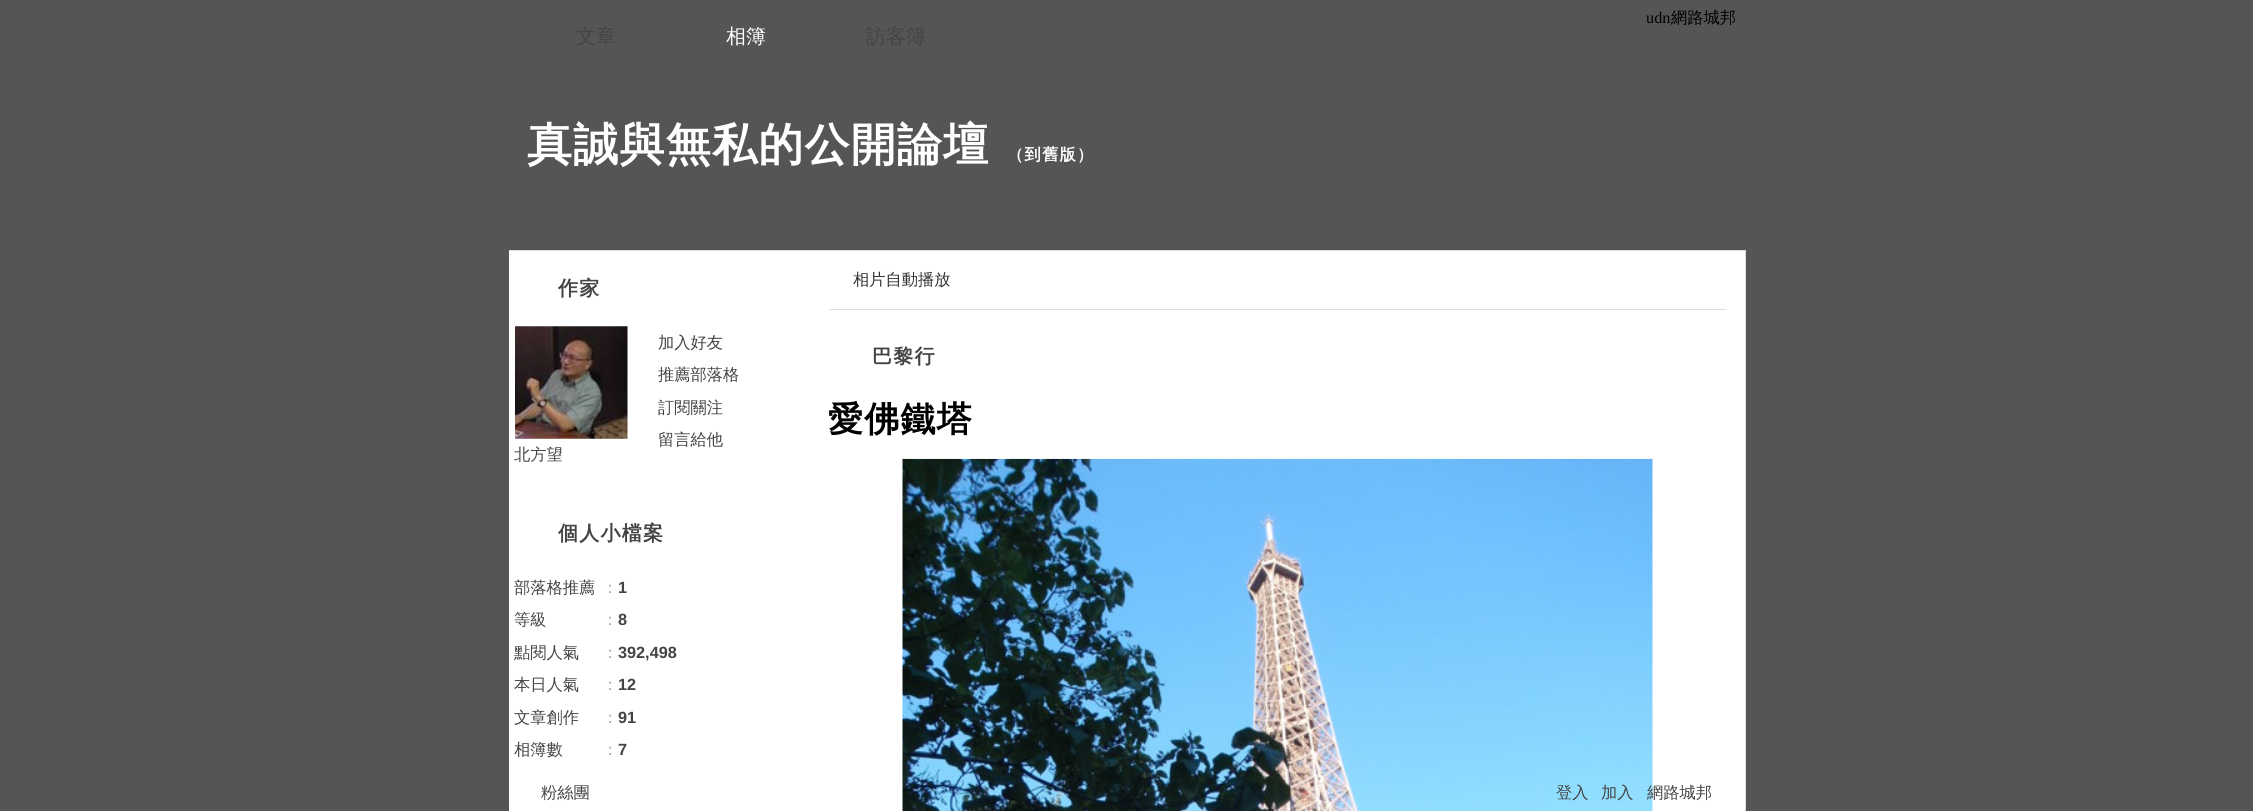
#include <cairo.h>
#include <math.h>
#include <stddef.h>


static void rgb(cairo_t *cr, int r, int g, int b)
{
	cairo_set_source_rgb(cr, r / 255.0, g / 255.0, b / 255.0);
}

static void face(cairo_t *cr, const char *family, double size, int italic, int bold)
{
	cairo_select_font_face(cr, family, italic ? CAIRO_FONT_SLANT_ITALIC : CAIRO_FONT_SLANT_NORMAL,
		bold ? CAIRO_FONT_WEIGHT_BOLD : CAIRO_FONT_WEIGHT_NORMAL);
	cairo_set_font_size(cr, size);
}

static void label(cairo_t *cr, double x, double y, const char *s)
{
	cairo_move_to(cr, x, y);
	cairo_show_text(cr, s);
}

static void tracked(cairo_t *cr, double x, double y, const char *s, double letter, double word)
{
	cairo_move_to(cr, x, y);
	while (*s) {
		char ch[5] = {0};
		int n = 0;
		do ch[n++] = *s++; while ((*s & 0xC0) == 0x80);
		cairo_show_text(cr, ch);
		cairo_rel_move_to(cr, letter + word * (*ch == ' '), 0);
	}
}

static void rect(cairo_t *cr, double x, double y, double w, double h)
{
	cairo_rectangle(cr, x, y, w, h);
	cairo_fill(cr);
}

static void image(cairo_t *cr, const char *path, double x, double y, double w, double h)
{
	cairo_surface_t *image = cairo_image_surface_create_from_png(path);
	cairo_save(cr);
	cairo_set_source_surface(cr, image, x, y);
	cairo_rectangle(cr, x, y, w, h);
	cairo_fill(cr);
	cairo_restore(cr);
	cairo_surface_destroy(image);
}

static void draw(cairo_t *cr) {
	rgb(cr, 85, 85, 85);
	cairo_paint(cr);
	face(cr, "Liberation Serif", 16.25, 0, 0);
	rgb(cr, 0, 0, 0);
	label(cr, 1646, 23, "udn");
	face(cr, "WenQuanYi Zen Hei Medium", 16.25, 0, 0);
	label(cr, 1671, 23, "網路城邦");
	face(cr, "WenQuanYi Zen Hei Medium", 20, 0, 0);
	rgb(cr, 68, 68, 68);
	label(cr, 576, 43, "文章");
	rgb(cr, 255, 255, 255);
	label(cr, 726, 43, "相簿");
	rgb(cr, 68, 68, 68);
	label(cr, 866, 43, "訪客簿");
	rgb(cr, 221, 221, 221);
	rect(cr, 509, 250, 1237, 1);
	face(cr, "WenQuanYi Zen Hei", 45, 0, 1);
	rgb(cr, 255, 255, 255);
	tracked(cr, 527, 160, "真誠與無私的公開論壇", 1.25, 0);
	face(cr, "WenQuanYi Zen Hei", 16.25, 0, 1);
	tracked(cr, 1007, 160, "（到舊版）", 1.25, 0);
	rect(cr, 509, 251, 1236, 560);
	face(cr, "WenQuanYi Zen Hei", 20, 0, 1);
	rgb(cr, 68, 68, 68);
	tracked(cr, 558, 295, "作家", 1.25, 0);
	face(cr, "WenQuanYi Zen Hei Medium", 16.25, 0, 0);
	label(cr, 658, 348, "加入好友");
	label(cr, 658, 380, "推薦部落格");
	label(cr, 658, 413, "訂閱關注");
	label(cr, 658, 445, "留言給他");
	image(cr, "image0.png", 515, 326, 113, 113);
	label(cr, 514, 460, "北方望");
	face(cr, "WenQuanYi Zen Hei", 20, 0, 1);
	tracked(cr, 558, 540, "個人小檔案", 1.25, 0);
	face(cr, "WenQuanYi Zen Hei Medium", 16.25, 0, 0);
	label(cr, 514, 593, "部落格推薦");
	rgb(cr, 170, 170, 170);
	label(cr, 602, 593, "：");
	face(cr, "Liberation Sans", 16.25, 0, 1);
	rgb(cr, 68, 68, 68);
	label(cr, 618, 593, "1");
	face(cr, "WenQuanYi Zen Hei Medium", 16.25, 0, 0);
	label(cr, 514, 625, "等級");
	rgb(cr, 170, 170, 170);
	label(cr, 602, 625, "：");
	face(cr, "Liberation Sans", 16.25, 0, 1);
	rgb(cr, 68, 68, 68);
	label(cr, 618, 625, "8");
	face(cr, "WenQuanYi Zen Hei Medium", 16.25, 0, 0);
	label(cr, 514, 658, "點閱人氣");
	rgb(cr, 170, 170, 170);
	label(cr, 602, 658, "：");
	face(cr, "Liberation Sans", 16.25, 0, 1);
	rgb(cr, 68, 68, 68);
	label(cr, 618, 658, "392,498");
	face(cr, "WenQuanYi Zen Hei Medium", 16.25, 0, 0);
	label(cr, 514, 690, "本日人氣");
	rgb(cr, 170, 170, 170);
	label(cr, 602, 690, "：");
	face(cr, "Liberation Sans", 16.25, 0, 1);
	rgb(cr, 68, 68, 68);
	label(cr, 618, 690, "12");
	face(cr, "WenQuanYi Zen Hei Medium", 16.25, 0, 0);
	label(cr, 514, 723, "文章創作");
	rgb(cr, 170, 170, 170);
	label(cr, 602, 723, "：");
	face(cr, "Liberation Sans", 16.25, 0, 1);
	rgb(cr, 68, 68, 68);
	label(cr, 618, 723, "91");
	face(cr, "WenQuanYi Zen Hei Medium", 16.25, 0, 0);
	label(cr, 514, 755, "相簿數");
	rgb(cr, 170, 170, 170);
	label(cr, 602, 755, "：");
	face(cr, "Liberation Sans", 16.25, 0, 1);
	rgb(cr, 68, 68, 68);
	label(cr, 618, 755, "7");
	rgb(cr, 221, 221, 221);
	rect(cr, 1745, 251, 1, 560);
	rect(cr, 829, 309, 897, 1);
	face(cr, "WenQuanYi Zen Hei Medium", 16.25, 0, 0);
	rgb(cr, 51, 51, 51);
	label(cr, 853, 285, "相片自動播放");
	face(cr, "WenQuanYi Zen Hei", 20, 0, 1);
	rgb(cr, 68, 68, 68);
	tracked(cr, 872, 363, "巴黎行", 1.25, 0);
	face(cr, "WenQuanYi Zen Hei", 35, 0, 1);
	rgb(cr, 0, 0, 0);
	tracked(cr, 828, 431, "愛佛鐵塔", 1.25, 0);
	image(cr, "image1.png", 902, 458, 751, 353);
	face(cr, "WenQuanYi Zen Hei Medium", 16.25, 0, 0);
	rgb(cr, 68, 68, 68);
	label(cr, 541, 798, "粉絲團");
	label(cr, 1556, 798, "登入");
	label(cr, 1601, 798, "加入");
	label(cr, 1647, 798, "網路城邦");
}

int main(void) {
	cairo_surface_t *surface = cairo_image_surface_create(CAIRO_FORMAT_RGB24, 2253, 811);
	cairo_t *cr = cairo_create(surface);
	cairo_font_options_t *options = cairo_font_options_create();
	cairo_font_options_set_hint_metrics(options, CAIRO_HINT_METRICS_OFF);
	cairo_font_options_set_hint_style(options, CAIRO_HINT_STYLE_NONE);
	cairo_set_font_options(cr, options);
	cairo_set_miter_limit(cr, 4);
	draw(cr);
	cairo_surface_write_to_png(surface, "render.png");
	cairo_font_options_destroy(options);
	cairo_destroy(cr);
	cairo_surface_destroy(surface);
	return 0;
}
